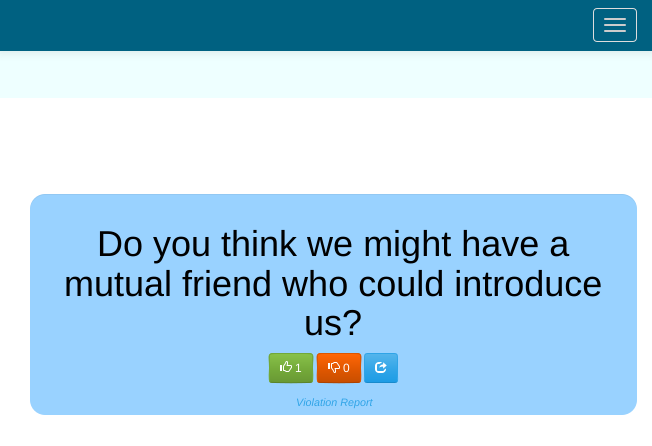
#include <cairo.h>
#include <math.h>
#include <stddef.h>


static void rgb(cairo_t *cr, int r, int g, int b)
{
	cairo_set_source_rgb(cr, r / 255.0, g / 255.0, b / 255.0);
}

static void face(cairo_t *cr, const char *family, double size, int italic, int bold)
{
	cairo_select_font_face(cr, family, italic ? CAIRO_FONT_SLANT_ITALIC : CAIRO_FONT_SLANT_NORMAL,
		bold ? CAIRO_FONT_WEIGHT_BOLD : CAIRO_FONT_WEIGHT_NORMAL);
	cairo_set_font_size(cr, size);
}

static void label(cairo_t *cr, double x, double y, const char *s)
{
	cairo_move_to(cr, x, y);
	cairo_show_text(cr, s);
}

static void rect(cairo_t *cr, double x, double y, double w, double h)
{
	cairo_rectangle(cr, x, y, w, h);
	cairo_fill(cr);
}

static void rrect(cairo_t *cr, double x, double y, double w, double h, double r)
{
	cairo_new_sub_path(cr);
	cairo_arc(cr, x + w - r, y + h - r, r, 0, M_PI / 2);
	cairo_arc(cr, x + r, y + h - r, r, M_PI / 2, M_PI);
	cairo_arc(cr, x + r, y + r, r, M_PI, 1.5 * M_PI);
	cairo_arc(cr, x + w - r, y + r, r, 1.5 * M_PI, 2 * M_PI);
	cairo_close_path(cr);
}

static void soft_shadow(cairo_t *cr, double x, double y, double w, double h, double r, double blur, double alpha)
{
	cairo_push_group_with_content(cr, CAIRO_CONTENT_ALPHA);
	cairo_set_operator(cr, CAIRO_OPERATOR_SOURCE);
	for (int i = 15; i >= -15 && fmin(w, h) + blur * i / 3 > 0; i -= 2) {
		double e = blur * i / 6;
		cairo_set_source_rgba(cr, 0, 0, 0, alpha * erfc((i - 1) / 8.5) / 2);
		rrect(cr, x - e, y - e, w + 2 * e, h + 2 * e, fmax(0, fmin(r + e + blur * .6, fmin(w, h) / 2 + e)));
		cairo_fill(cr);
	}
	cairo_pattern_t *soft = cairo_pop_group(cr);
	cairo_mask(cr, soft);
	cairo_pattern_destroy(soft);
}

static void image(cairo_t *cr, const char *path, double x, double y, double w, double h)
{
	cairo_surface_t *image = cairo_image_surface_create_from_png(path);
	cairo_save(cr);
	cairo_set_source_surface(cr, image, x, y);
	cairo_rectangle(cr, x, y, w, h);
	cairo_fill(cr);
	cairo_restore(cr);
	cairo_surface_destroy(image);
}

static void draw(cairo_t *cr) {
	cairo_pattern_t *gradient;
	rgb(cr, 238, 255, 255);
	cairo_paint(cr);
	rgb(cr, 0, 0, 0);
	soft_shadow(cr, 0, 1, 652, 51, 0, 5, 0.1);
	rgb(cr, 0, 97, 129);
	rect(cr, 0, 0, 652, 51);
	rrect(cr, 593.5, 8.5, 43, 33, 3.5);
	rgb(cr, 221, 221, 221);
	cairo_set_line_width(cr, 1);
	cairo_stroke(cr);
	rgb(cr, 204, 204, 204);
	rrect(cr, 604, 18, 22, 2, 1);
	cairo_fill(cr);
	rrect(cr, 604, 24, 22, 2, 1);
	cairo_fill(cr);
	rrect(cr, 604, 30, 22, 2, 1);
	cairo_fill(cr);
	rgb(cr, 255, 255, 255);
	rect(cr, 0, 98, 652, 348);
	rgb(cr, 153, 210, 255);
	rrect(cr, 30, 194, 607, 221, 15);
	cairo_fill(cr);
	cairo_set_source_rgba(cr, 0, 0, 0, 0.05);
	cairo_new_path(cr);
	cairo_move_to(cr, 45, 195);
	cairo_line_to(cr, 622, 195);
	cairo_curve_to(cr, 630, 195, 637, 202, 637, 210);
	cairo_line_to(cr, 637, 209);
	cairo_curve_to(cr, 637, 201, 630, 194, 622, 194);
	cairo_line_to(cr, 45, 194);
	cairo_curve_to(cr, 37, 194, 30, 201, 30, 209);
	cairo_line_to(cr, 30, 210);
	cairo_curve_to(cr, 30, 202, 37, 195, 45, 195);
	cairo_close_path(cr);
	cairo_fill(cr);
	face(cr, "Liberation Sans", 36, 0, 0);
	rgb(cr, 0, 0, 0);
	label(cr, 97, 256, "Do you think we might have a");
	label(cr, 64, 296, "mutual friend who could introduce");
	label(cr, 304, 335, "us?");
	rgb(cr, 115, 168, 57);
	rrect(cr, 269, 353, 44, 30, 3);
	cairo_fill(cr);
	gradient = cairo_pattern_create_linear(291, 354, 291, 382);
	cairo_pattern_add_color_stop_rgba(gradient, 0, 0.533, 0.757, 0.286, 1);
	cairo_pattern_add_color_stop_rgba(gradient, 0.6, 0.451, 0.659, 0.224, 1);
	cairo_pattern_add_color_stop_rgba(gradient, 1, 0.412, 0.6, 0.204, 1);
	cairo_set_source(cr, gradient);
	cairo_pattern_destroy(gradient);
	rect(cr, 270, 354, 42, 28);
	cairo_new_path(cr);
	cairo_move_to(cr, 312, 382);
	cairo_curve_to(cr, 310.5, 383, 271.5, 383, 270, 382);
	rgb(cr, 89, 130, 44);
	cairo_stroke(cr);
	cairo_new_path(cr);
	cairo_move_to(cr, 270, 382);
	cairo_curve_to(cr, 268.5, 380, 269.5, 370.5, 269.5, 368);
	cairo_curve_to(cr, 269.5, 354, 266, 353.5, 278.5, 353.5);
	cairo_line_to(cr, 303.5, 353.5);
	cairo_curve_to(cr, 316, 353.5, 312.5, 354, 312.5, 368);
	cairo_curve_to(cr, 312.5, 370.5, 313.5, 380, 312, 382);
	rgb(cr, 115, 168, 57);
	cairo_stroke(cr);
	image(cr, "image0.png", 280, 361, 12, 11);
	face(cr, "Liberation Sans", 12, 0, 0);
	rgb(cr, 255, 255, 255);
	label(cr, 295, 372, "1");
	rgb(cr, 221, 86, 0);
	rrect(cr, 317, 353, 44, 30, 3);
	cairo_fill(cr);
	gradient = cairo_pattern_create_linear(339, 354, 339, 382);
	cairo_pattern_add_color_stop_rgba(gradient, 0, 1, 0.404, 0.027, 1);
	cairo_pattern_add_color_stop_rgba(gradient, 0.6, 0.867, 0.337, 0, 1);
	cairo_pattern_add_color_stop_rgba(gradient, 1, 0.788, 0.306, 0, 1);
	cairo_set_source(cr, gradient);
	cairo_pattern_destroy(gradient);
	rect(cr, 318, 354, 42, 28);
	cairo_new_path(cr);
	cairo_move_to(cr, 360, 382);
	cairo_curve_to(cr, 358.5, 383, 319.5, 383, 318, 382);
	rgb(cr, 170, 66, 0);
	cairo_stroke(cr);
	cairo_new_path(cr);
	cairo_move_to(cr, 318, 382);
	cairo_curve_to(cr, 316.5, 380, 317.5, 370.5, 317.5, 368);
	cairo_curve_to(cr, 317.5, 354, 314, 353.5, 326.5, 353.5);
	cairo_line_to(cr, 351.5, 353.5);
	cairo_curve_to(cr, 364, 353.5, 360.5, 354, 360.5, 368);
	cairo_curve_to(cr, 360.5, 370.5, 361.5, 380, 360, 382);
	rgb(cr, 221, 86, 0);
	cairo_stroke(cr);
	image(cr, "image1.png", 328, 362, 12, 11);
	rgb(cr, 255, 255, 255);
	label(cr, 343, 372, "0");
	gradient = cairo_pattern_create_linear(381, 354, 381, 382);
	cairo_pattern_add_color_stop_rgba(gradient, 0, 0.329, 0.706, 0.922, 1);
	cairo_pattern_add_color_stop_rgba(gradient, 0.6, 0.184, 0.643, 0.906, 1);
	cairo_pattern_add_color_stop_rgba(gradient, 1, 0.114, 0.612, 0.898, 1);
	cairo_set_source(cr, gradient);
	cairo_pattern_destroy(gradient);
	rect(cr, 365, 354, 32, 28);
	cairo_new_path(cr);
	cairo_move_to(cr, 397, 382);
	cairo_curve_to(cr, 396.5, 382, 395.5, 382.5, 395, 382.5);
	cairo_line_to(cr, 367, 382.5);
	cairo_curve_to(cr, 366.5, 382.5, 365.5, 382, 365, 382);
	rgb(cr, 23, 138, 204);
	cairo_stroke(cr);
	cairo_new_path(cr);
	cairo_move_to(cr, 365, 382);
	cairo_curve_to(cr, 364, 380.5, 364.5, 377.5, 364.5, 376);
	cairo_line_to(cr, 364.5, 360);
	cairo_curve_to(cr, 364.5, 353, 364.5, 353.5, 371.5, 353.5);
	cairo_line_to(cr, 390.5, 353.5);
	cairo_curve_to(cr, 397.5, 353.5, 397.5, 353, 397.5, 360);
	cairo_line_to(cr, 397.5, 376);
	cairo_curve_to(cr, 397.5, 377.5, 398, 380.5, 397, 382);
	rgb(cr, 47, 164, 231);
	cairo_stroke(cr);
	image(cr, "image2.png", 375, 362, 12, 11);
	face(cr, "Liberation Sans", 10.75, 1, 0);
	label(cr, 296, 406, "Violation Report");
}

int main(void) {
	cairo_surface_t *surface = cairo_image_surface_create(CAIRO_FORMAT_RGB24, 652, 446);
	cairo_t *cr = cairo_create(surface);
	cairo_font_options_t *options = cairo_font_options_create();
	cairo_font_options_set_hint_metrics(options, CAIRO_HINT_METRICS_OFF);
	cairo_font_options_set_hint_style(options, CAIRO_HINT_STYLE_NONE);
	cairo_set_font_options(cr, options);
	cairo_set_miter_limit(cr, 4);
	draw(cr);
	cairo_surface_write_to_png(surface, "render.png");
	cairo_font_options_destroy(options);
	cairo_destroy(cr);
	cairo_surface_destroy(surface);
	return 0;
}
